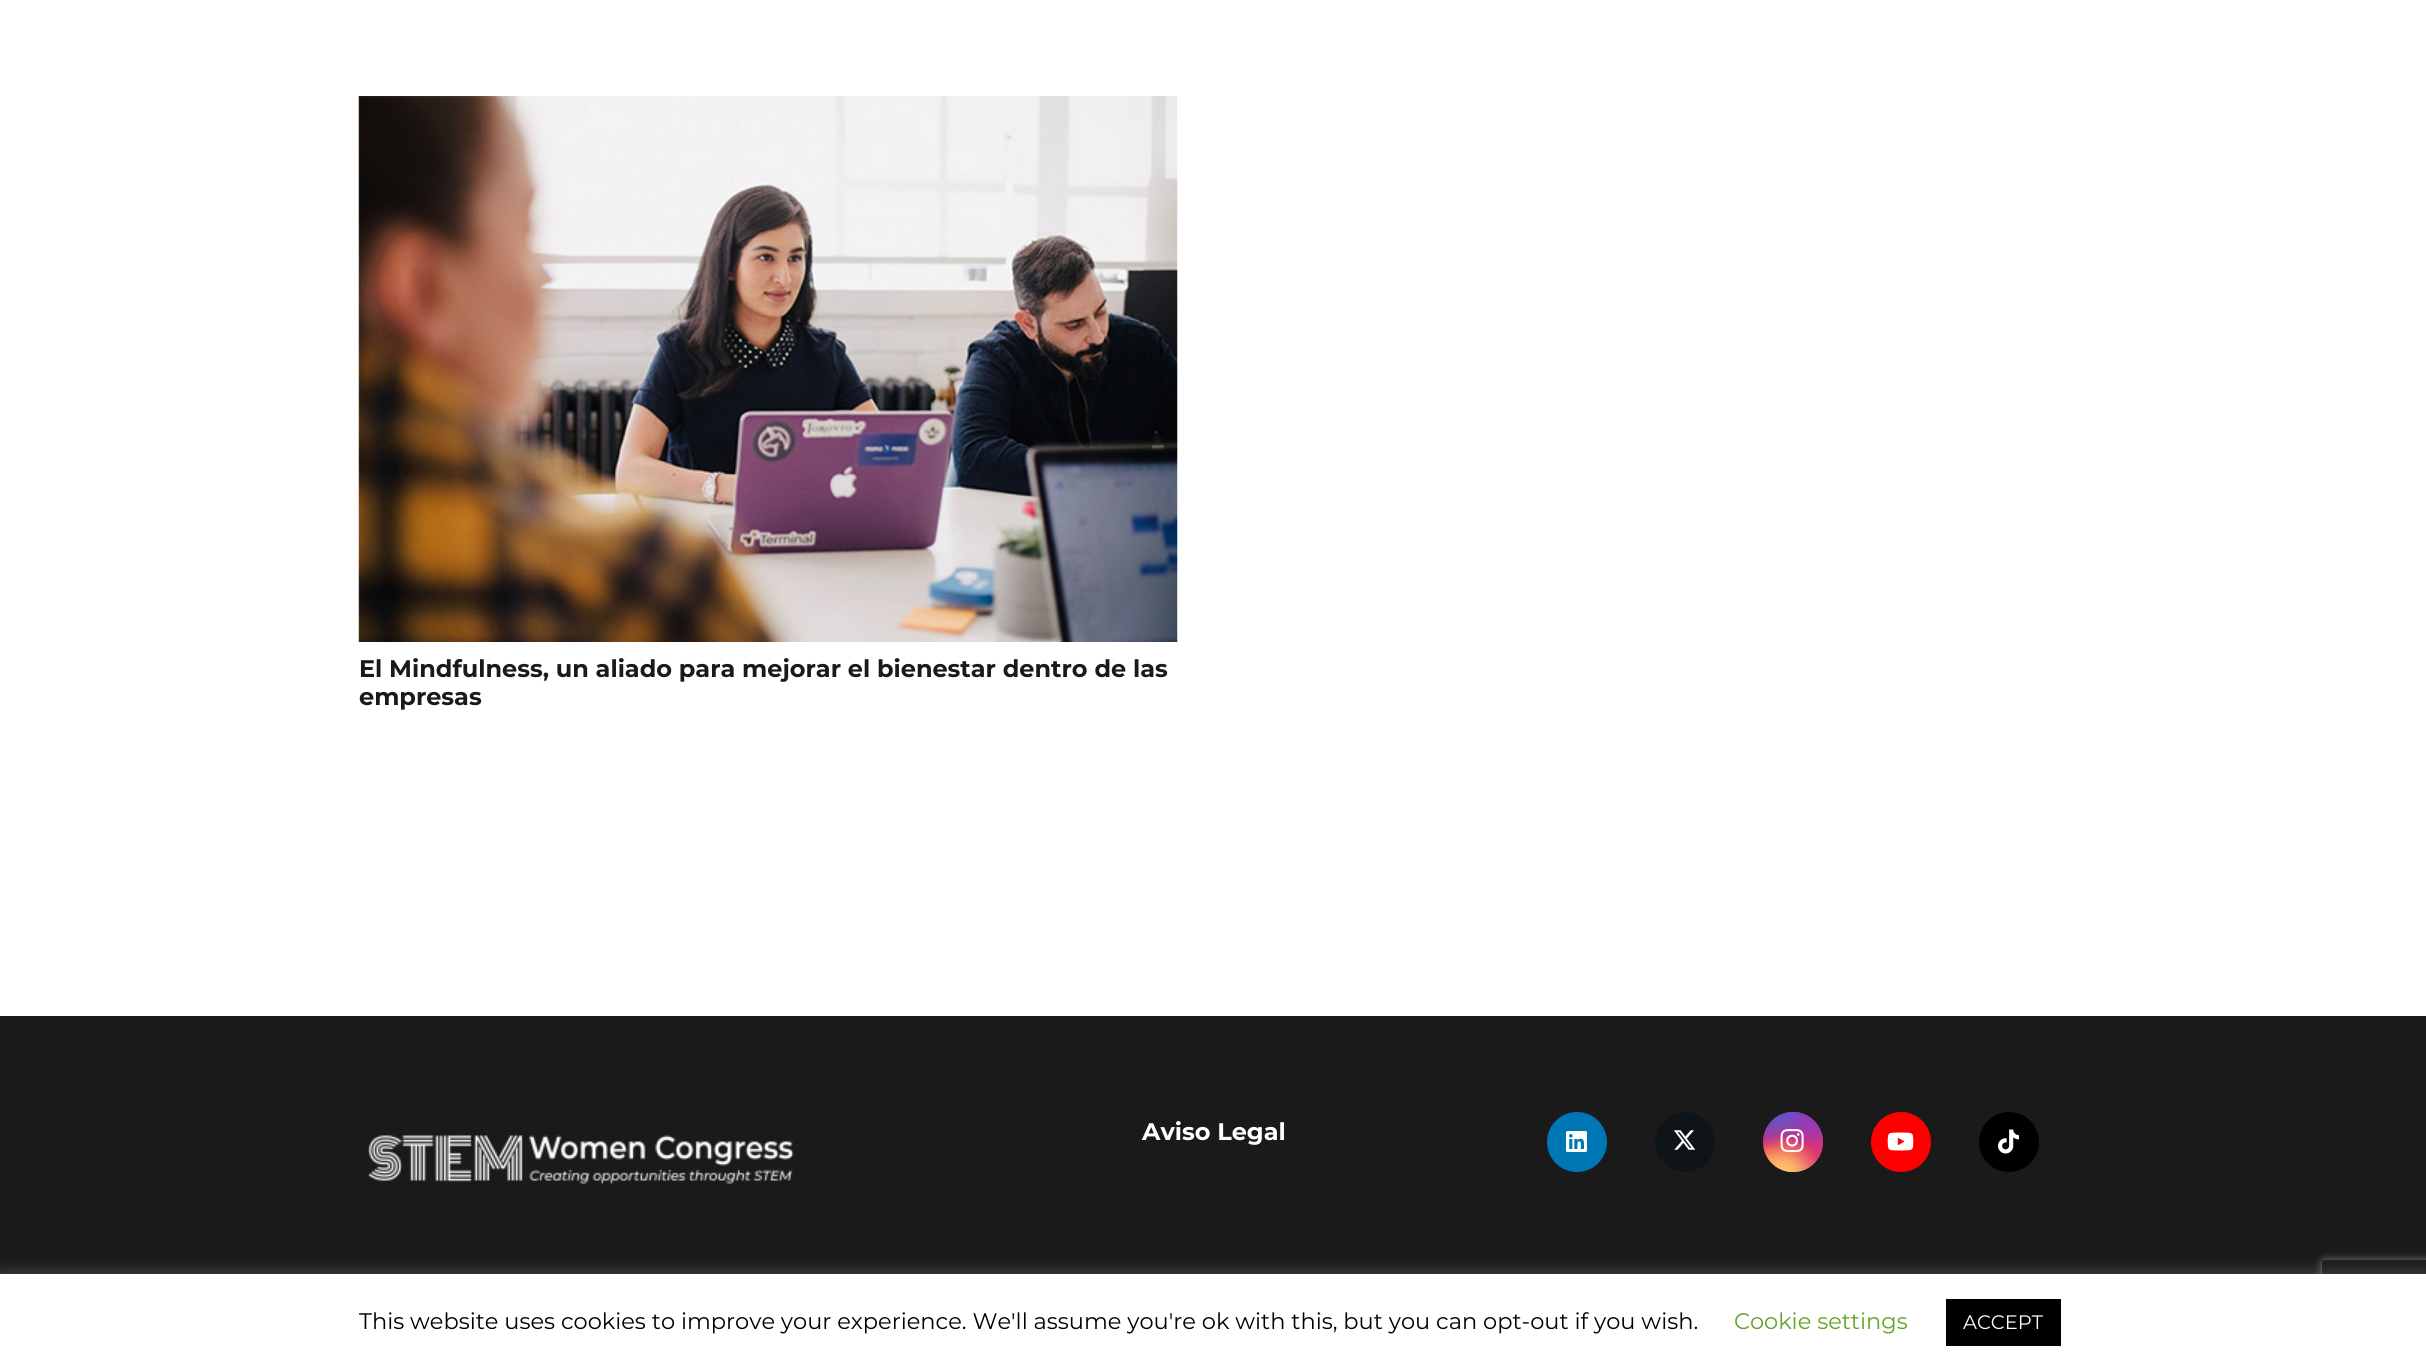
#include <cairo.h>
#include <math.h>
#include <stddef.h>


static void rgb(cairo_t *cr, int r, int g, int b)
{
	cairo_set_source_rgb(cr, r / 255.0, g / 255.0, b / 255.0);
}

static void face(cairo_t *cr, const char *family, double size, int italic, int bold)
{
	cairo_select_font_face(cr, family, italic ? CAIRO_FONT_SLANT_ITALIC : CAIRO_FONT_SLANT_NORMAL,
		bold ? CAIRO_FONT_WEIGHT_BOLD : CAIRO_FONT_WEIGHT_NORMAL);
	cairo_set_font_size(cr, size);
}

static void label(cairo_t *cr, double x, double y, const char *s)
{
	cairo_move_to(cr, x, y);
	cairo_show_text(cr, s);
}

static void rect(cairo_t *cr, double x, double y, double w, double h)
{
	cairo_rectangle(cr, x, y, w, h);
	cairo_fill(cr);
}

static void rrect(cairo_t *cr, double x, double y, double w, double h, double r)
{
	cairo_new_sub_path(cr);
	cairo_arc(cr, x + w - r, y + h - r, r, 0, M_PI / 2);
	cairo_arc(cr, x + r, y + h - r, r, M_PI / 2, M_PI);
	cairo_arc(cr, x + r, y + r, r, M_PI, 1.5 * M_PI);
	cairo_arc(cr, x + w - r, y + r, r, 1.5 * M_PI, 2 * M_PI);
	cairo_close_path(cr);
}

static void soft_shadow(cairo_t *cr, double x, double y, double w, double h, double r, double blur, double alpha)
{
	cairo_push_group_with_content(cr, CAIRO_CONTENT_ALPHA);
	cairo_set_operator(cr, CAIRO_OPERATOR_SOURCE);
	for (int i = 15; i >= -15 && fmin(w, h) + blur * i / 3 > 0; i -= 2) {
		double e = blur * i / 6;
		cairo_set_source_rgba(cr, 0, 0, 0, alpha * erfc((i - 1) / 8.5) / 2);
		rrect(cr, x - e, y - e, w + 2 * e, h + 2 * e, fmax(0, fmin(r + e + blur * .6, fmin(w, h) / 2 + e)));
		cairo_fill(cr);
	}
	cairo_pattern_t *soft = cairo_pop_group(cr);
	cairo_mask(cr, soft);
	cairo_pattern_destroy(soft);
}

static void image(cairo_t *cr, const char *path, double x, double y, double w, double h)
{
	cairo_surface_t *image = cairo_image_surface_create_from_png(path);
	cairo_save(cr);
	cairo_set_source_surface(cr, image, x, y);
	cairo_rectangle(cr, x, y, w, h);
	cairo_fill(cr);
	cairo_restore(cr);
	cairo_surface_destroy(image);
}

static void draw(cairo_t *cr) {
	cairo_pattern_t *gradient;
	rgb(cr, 255, 255, 255);
	cairo_paint(cr);
	image(cr, "image0.png", 358, 96, 820, 546);
	face(cr, "Montserrat", 24, 0, 1);
	rgb(cr, 26, 26, 26);
	label(cr, 359, 677, "El Mindfulness, un aliado para mejorar el bienestar dentro de las");
	label(cr, 359, 705, "empresas");
	rect(cr, 0, 1016, 2426, 258);
	image(cr, "image1.png", 367, 1135, 427, 49);
	rgb(cr, 255, 255, 255);
	label(cr, 1142, 1140, "Aviso Legal");
	rgb(cr, 0, 119, 181);
	cairo_new_path(cr);
	cairo_arc(cr, 1577, 1142, 30, 0, 2 * M_PI);
	cairo_fill(cr);
	image(cr, "image2.png", 1566, 1131, 21, 21);
	rgb(cr, 15, 20, 25);
	cairo_arc(cr, 1685, 1142, 30, 0, 2 * M_PI);
	cairo_fill(cr);
	image(cr, "image3.png", 1673, 1130, 23, 20);
	gradient = cairo_pattern_create_linear(1793, 1112, 1793, 1172);
	cairo_pattern_add_color_stop_rgba(gradient, 0, 0.396, 0.349, 0.792, 1);
	cairo_pattern_add_color_stop_rgba(gradient, 0.3, 0.737, 0.192, 0.561, 1);
	cairo_pattern_add_color_stop_rgba(gradient, 0.5, 0.894, 0.18, 0.4, 1);
	cairo_pattern_add_color_stop_rgba(gradient, 0.7, 0.98, 0.325, 0.196, 1);
	cairo_pattern_add_color_stop_rgba(gradient, 1, 1, 0.863, 0.502, 1);
	cairo_set_source(cr, gradient);
	cairo_pattern_destroy(gradient);
	cairo_arc(cr, 1793, 1142, 30, 0, 2 * M_PI);
	cairo_fill(cr);
	gradient = cairo_pattern_create_radial(1823, 1172, 0, 1823, 1172, 85);
	cairo_pattern_add_color_stop_rgba(gradient, 0, 0.851, 0.192, 0.478, 1);
	cairo_pattern_add_color_stop_rgba(gradient, 1, 0.851, 0.192, 0.478, 0);
	cairo_set_source(cr, gradient);
	cairo_pattern_destroy(gradient);
	cairo_arc(cr, 1793, 1142, 30, 0, 2 * M_PI);
	cairo_fill(cr);
	gradient = cairo_pattern_create_radial(0, 0, 0, 0, 0, 1);
	cairo_pattern_set_matrix(gradient, &(cairo_matrix_t){1.0 / 51, 0, 0, 1.0 / 102, -1.0 * 1799 / 51, -1.0 * 1100 / 102});
	cairo_pattern_add_color_stop_rgba(gradient, 0, 0.537, 0.239, 0.761, 1);
	cairo_pattern_add_color_stop_rgba(gradient, 0.5, 0.537, 0.239, 0.761, 0);
	cairo_set_source(cr, gradient);
	cairo_pattern_destroy(gradient);
	cairo_arc(cr, 1793, 1142, 30, 0, 2 * M_PI);
	cairo_fill(cr);
	gradient = cairo_pattern_create_radial(1823, 1112, 0, 1823, 1112, 85);
	cairo_pattern_add_color_stop_rgba(gradient, 0, 0.537, 0.239, 0.761, 1);
	cairo_pattern_add_color_stop_rgba(gradient, 0.5, 0.537, 0.239, 0.761, 0);
	cairo_set_source(cr, gradient);
	cairo_pattern_destroy(gradient);
	cairo_arc(cr, 1793, 1142, 30, 0, 2 * M_PI);
	cairo_fill(cr);
	gradient = cairo_pattern_create_radial(0, 0, 0, 0, 0, 1);
	cairo_pattern_set_matrix(gradient, &(cairo_matrix_t){1.0 / 68, 0, 0, 1.0 / 127, -1.0 * 1775 / 68, -1.0 * 1082 / 127});
	cairo_pattern_add_color_stop_rgba(gradient, 0, 0.322, 0.345, 0.812, 1);
	cairo_pattern_add_color_stop_rgba(gradient, 0.5, 0.322, 0.345, 0.812, 0);
	cairo_set_source(cr, gradient);
	cairo_pattern_destroy(gradient);
	cairo_arc(cr, 1793, 1142, 30, 0, 2 * M_PI);
	cairo_fill(cr);
	gradient = cairo_pattern_create_radial(0, 0, 0, 0, 0, 1);
	cairo_pattern_set_matrix(gradient, &(cairo_matrix_t){1.0 / 85, 0, 0, 1.0 / 106, -1.0 * 1763 / 85, -1.0 * 1097 / 106});
	cairo_pattern_add_color_stop_rgba(gradient, 0, 0.322, 0.345, 0.812, 1);
	cairo_pattern_add_color_stop_rgba(gradient, 0.5, 0.322, 0.345, 0.812, 0);
	cairo_set_source(cr, gradient);
	cairo_pattern_destroy(gradient);
	cairo_arc(cr, 1793, 1142, 30, 0, 2 * M_PI);
	cairo_fill(cr);
	gradient = cairo_pattern_create_radial(1769, 1196, 0, 1769, 1196, 100);
	cairo_pattern_add_color_stop_rgba(gradient, 0, 0.996, 0.855, 0.494, 1);
	cairo_pattern_add_color_stop_rgba(gradient, 0.5, 0.996, 0.855, 0.494, 0);
	cairo_set_source(cr, gradient);
	cairo_pattern_destroy(gradient);
	cairo_arc(cr, 1793, 1142, 30, 0, 2 * M_PI);
	cairo_fill(cr);
	gradient = cairo_pattern_create_radial(1784, 1172, 0, 1784, 1172, 72);
	cairo_pattern_add_color_stop_rgba(gradient, 0, 0.996, 0.773, 0.392, 1);
	cairo_pattern_add_color_stop_rgba(gradient, 0.5, 0.996, 0.773, 0.392, 0);
	cairo_set_source(cr, gradient);
	cairo_pattern_destroy(gradient);
	cairo_arc(cr, 1793, 1142, 30, 0, 2 * M_PI);
	cairo_fill(cr);
	image(cr, "image4.png", 1780, 1129, 24, 24);
	rgb(cr, 255, 0, 0);
	cairo_arc(cr, 1901, 1142, 30, 0, 2 * M_PI);
	cairo_fill(cr);
	image(cr, "image5.png", 1887, 1132, 27, 19);
	rgb(cr, 0, 0, 0);
	cairo_arc(cr, 2009, 1142, 30, 0, 2 * M_PI);
	cairo_fill(cr);
	image(cr, "image6.png", 1998, 1129, 21, 25);
	rgb(cr, 172, 171, 171);
	soft_shadow(cr, 0, 1272, 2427, 98, 0, 7.5, 0.3);
	cairo_save(cr);
	cairo_set_fill_rule(cr, CAIRO_FILL_RULE_EVEN_ODD);
	cairo_new_path(cr);
	cairo_move_to(cr, 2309, 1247);
	cairo_line_to(cr, 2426, 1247);
	cairo_line_to(cr, 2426, 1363);
	cairo_line_to(cr, 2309, 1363);
	cairo_close_path(cr);
	cairo_move_to(cr, 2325, 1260);
	cairo_line_to(cr, 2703, 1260);
	cairo_curve_to(cr, 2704.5, 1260, 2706, 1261.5, 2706, 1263);
	cairo_line_to(cr, 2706, 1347);
	cairo_curve_to(cr, 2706, 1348.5, 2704.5, 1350, 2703, 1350);
	cairo_line_to(cr, 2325, 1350);
	cairo_curve_to(cr, 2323.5, 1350, 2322, 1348.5, 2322, 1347);
	cairo_line_to(cr, 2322, 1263);
	cairo_curve_to(cr, 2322, 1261.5, 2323.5, 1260, 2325, 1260);
	cairo_close_path(cr);
	cairo_clip(cr);
	rgb(cr, 128, 128, 128);
	soft_shadow(cr, 2322, 1260, 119, 90, 3, 4, 1);
	cairo_restore(cr);
	rgb(cr, 255, 255, 255);
	rect(cr, 0, 1274, 2426, 96);
	face(cr, "Montserrat", 22.5, 0, 0);
	rgb(cr, 0, 0, 0);
	label(cr, 359, 1329, "This website uses cookies to improve your experience. We'll assume you're ok with this, but you can opt-out if you wish.");
	rgb(cr, 98, 163, 41);
	label(cr, 1734, 1329, "Cookie settings");
	rgb(cr, 0, 0, 0);
	rect(cr, 1946, 1299, 115, 47);
	face(cr, "Montserrat", 19.5, 0, 0);
	rgb(cr, 255, 255, 255);
	label(cr, 1963, 1329, "ACCEPT");
}

int main(void) {
	cairo_surface_t *surface = cairo_image_surface_create(CAIRO_FORMAT_RGB24, 2426, 1370);
	cairo_t *cr = cairo_create(surface);
	cairo_font_options_t *options = cairo_font_options_create();
	cairo_font_options_set_hint_metrics(options, CAIRO_HINT_METRICS_OFF);
	cairo_font_options_set_hint_style(options, CAIRO_HINT_STYLE_NONE);
	cairo_set_font_options(cr, options);
	cairo_set_miter_limit(cr, 4);
	draw(cr);
	cairo_surface_write_to_png(surface, "render.png");
	cairo_font_options_destroy(options);
	cairo_destroy(cr);
	cairo_surface_destroy(surface);
	return 0;
}
